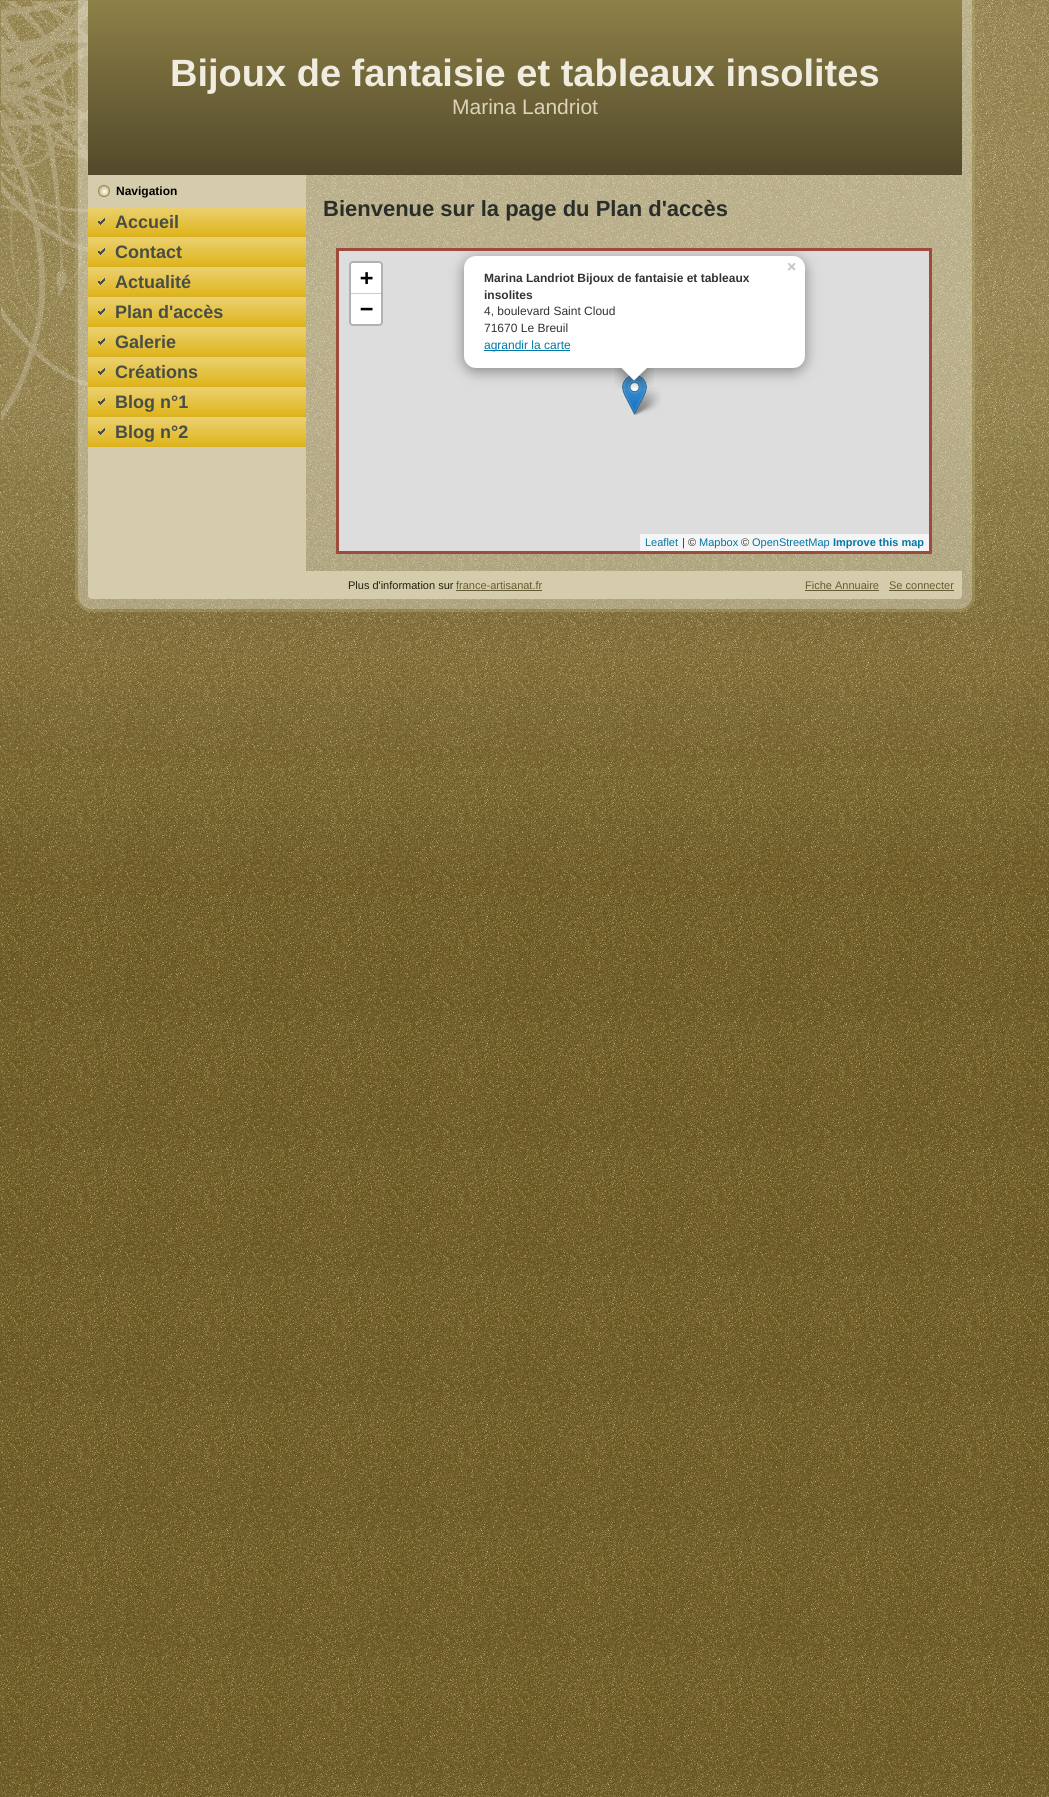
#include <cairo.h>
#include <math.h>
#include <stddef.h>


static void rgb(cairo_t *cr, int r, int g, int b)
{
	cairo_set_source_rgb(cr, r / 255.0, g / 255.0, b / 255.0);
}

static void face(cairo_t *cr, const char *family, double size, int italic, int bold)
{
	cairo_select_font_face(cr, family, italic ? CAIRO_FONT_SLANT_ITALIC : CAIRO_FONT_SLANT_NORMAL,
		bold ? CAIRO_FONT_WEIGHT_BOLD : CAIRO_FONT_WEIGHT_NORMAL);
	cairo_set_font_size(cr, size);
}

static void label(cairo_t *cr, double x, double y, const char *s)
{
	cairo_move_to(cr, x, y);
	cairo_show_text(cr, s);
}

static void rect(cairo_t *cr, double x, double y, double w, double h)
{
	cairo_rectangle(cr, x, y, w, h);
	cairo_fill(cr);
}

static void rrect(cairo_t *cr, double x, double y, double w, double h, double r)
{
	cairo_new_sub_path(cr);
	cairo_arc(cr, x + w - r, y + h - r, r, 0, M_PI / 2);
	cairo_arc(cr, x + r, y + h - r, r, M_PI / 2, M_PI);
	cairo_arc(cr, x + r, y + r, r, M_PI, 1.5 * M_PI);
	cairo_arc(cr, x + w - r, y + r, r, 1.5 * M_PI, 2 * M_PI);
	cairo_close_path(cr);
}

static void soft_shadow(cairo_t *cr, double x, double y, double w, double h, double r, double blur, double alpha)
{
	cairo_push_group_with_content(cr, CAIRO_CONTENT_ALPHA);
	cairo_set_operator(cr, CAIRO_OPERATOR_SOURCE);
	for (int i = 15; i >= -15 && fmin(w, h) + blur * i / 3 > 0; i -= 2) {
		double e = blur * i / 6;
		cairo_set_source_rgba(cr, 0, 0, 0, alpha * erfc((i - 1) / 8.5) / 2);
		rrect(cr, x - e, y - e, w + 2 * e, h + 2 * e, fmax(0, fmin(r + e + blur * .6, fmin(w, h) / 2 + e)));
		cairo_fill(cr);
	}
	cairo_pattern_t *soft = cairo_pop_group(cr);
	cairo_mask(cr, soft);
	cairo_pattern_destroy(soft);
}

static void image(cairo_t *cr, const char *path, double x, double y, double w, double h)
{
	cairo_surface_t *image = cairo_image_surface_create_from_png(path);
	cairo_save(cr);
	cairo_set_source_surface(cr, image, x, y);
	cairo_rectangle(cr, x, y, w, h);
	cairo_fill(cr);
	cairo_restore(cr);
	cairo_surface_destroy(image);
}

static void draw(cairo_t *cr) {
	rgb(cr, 255, 255, 255);
	cairo_paint(cr);
	image(cr, "image0.png", 0, 900, 1049, 897);
	image(cr, "image1.png", 0, 0, 1049, 900);
	image(cr, "image2.png", 1, 1, 87, 421);
	image(cr, "image3.png", 75, 0, 13, 4);
	image(cr, "image4.png", 962, 0, 13, 4);
	image(cr, "image5.png", 75, 4, 13, 591);
	image(cr, "image13.png", 958, 4, 17, 591);
	image(cr, "image6.png", 88, 0, 874, 175);
	face(cr, "Liberation Sans", 38, 0, 1);
	rgb(cr, 240, 237, 224);
	label(cr, 170, 86, "Bijoux de fantaisie et tableaux insolites");
	face(cr, "Liberation Sans", 21, 0, 0);
	rgb(cr, 219, 212, 184);
	label(cr, 452, 114, "Marina Landriot");
	rgb(cr, 212, 204, 170);
	rect(cr, 88, 175, 218, 396);
	image(cr, "image7.png", 98, 185, 12, 12);
	face(cr, "Liberation Sans", 12, 0, 1);
	rgb(cr, 0, 0, 0);
	label(cr, 116, 195, "Navigation");
	image(cr, "image8.png", 88, 207, 201, 30);
	image(cr, "image9.png", 289, 207, 17, 30);
	face(cr, "Liberation Sans", 18, 0, 1);
	rgb(cr, 72, 78, 70);
	label(cr, 115, 228, "Accueil");
	image(cr, "image8.png", 88, 237, 201, 30);
	image(cr, "image9.png", 289, 237, 17, 30);
	label(cr, 115, 258, "Contact");
	image(cr, "image8.png", 88, 267, 201, 30);
	image(cr, "image9.png", 289, 267, 17, 30);
	label(cr, 115, 288, "Actualité");
	image(cr, "image8.png", 88, 297, 201, 30);
	image(cr, "image9.png", 289, 297, 17, 30);
	label(cr, 115, 318, "Plan d'accès");
	image(cr, "image8.png", 88, 327, 201, 30);
	image(cr, "image9.png", 289, 327, 17, 30);
	label(cr, 115, 348, "Galerie");
	image(cr, "image8.png", 88, 357, 201, 30);
	image(cr, "image9.png", 289, 357, 17, 30);
	label(cr, 115, 378, "Créations");
	image(cr, "image8.png", 88, 387, 201, 30);
	image(cr, "image9.png", 289, 387, 17, 30);
	label(cr, 115, 408, "Blog n°1");
	image(cr, "image8.png", 88, 417, 201, 30);
	image(cr, "image9.png", 289, 417, 17, 30);
	label(cr, 115, 438, "Blog n°2");
	cairo_set_source_rgba(cr, 0.941, 0.929, 0.882, 0.4);
	rect(cr, 306, 175, 652, 396);
	face(cr, "Liberation Sans", 22, 0, 1);
	rgb(cr, 42, 46, 41);
	label(cr, 323, 216, "Bienvenue sur la page du Plan d'accès");
	rgb(cr, 221, 221, 221);
	cairo_rectangle(cr, 337.5, 249.5, 593, 303);
	cairo_fill_preserve(cr);
	rgb(cr, 157, 75, 59);
	cairo_set_line_width(cr, 3);
	cairo_stroke(cr);
	image(cr, "image11.png", 632, 387, 29, 28);
	image(cr, "image10.png", 622, 375, 25, 40);
	cairo_save(cr);
	cairo_rectangle(cr, 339, 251, 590, 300);
	cairo_clip(cr);
	rgb(cr, 0, 0, 0);
	soft_shadow(cr, 464, 259, 341, 112, 12, 7, 0.4);
	cairo_restore(cr);
	rgb(cr, 255, 255, 255);
	rrect(cr, 464, 256, 341, 112, 12);
	cairo_fill(cr);
	face(cr, "Liberation Sans", 16, 0, 1);
	rgb(cr, 195, 195, 195);
	label(cr, 787, 272, "×");
	face(cr, "Liberation Sans", 12, 0, 1);
	rgb(cr, 51, 51, 51);
	label(cr, 484, 282, "Marina Landriot Bijoux de fantaisie et tableaux");
	label(cr, 484, 299, "insolites");
	face(cr, "Liberation Sans", 12, 0, 0);
	label(cr, 484, 315, "4, boulevard Saint Cloud");
	label(cr, 484, 332, "71670 Le Breuil");
	rgb(cr, 0, 120, 168);
	rect(cr, 484, 350, 86, 1);
	label(cr, 484, 349, "agrandir la carte");
	cairo_save(cr);
	cairo_rectangle(cr, 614, 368, 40, 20);
	cairo_clip(cr);
	rgb(cr, 0, 0, 0);
	soft_shadow(cr, 625, 361, 19, 19, 0, 7, 0.4);
	cairo_restore(cr);
	cairo_save(cr);
	cairo_rectangle(cr, 614, 368, 40, 20);
	cairo_clip(cr);
	rgb(cr, 255, 255, 255);
	cairo_new_path(cr);
	cairo_move_to(cr, 634, 354);
	cairo_line_to(cr, 647.5, 367.5);
	cairo_line_to(cr, 634, 380.5);
	cairo_line_to(cr, 621, 367.5);
	cairo_close_path(cr);
	cairo_fill(cr);
	cairo_restore(cr);
	rrect(cr, 350, 262, 32, 63, 3);
	rgb(cr, 177, 177, 177);
	cairo_set_line_width(cr, 2);
	cairo_stroke(cr);
	rgb(cr, 255, 255, 255);
	cairo_new_path(cr);
	cairo_move_to(cr, 353, 263);
	cairo_line_to(cr, 379, 263);
	cairo_curve_to(cr, 380, 263, 381, 264, 381, 265);
	cairo_line_to(cr, 381, 294);
	cairo_line_to(cr, 351, 294);
	cairo_line_to(cr, 351, 265);
	cairo_curve_to(cr, 351, 264, 352, 263, 353, 263);
	cairo_close_path(cr);
	cairo_fill(cr);
	rgb(cr, 204, 204, 204);
	rect(cr, 351, 293, 30, 1);
	face(cr, "DejaVu Sans Mono", 22, 0, 1);
	rgb(cr, 0, 0, 0);
	label(cr, 360, 285, "+");
	rgb(cr, 255, 255, 255);
	cairo_new_path(cr);
	cairo_move_to(cr, 351, 294);
	cairo_line_to(cr, 381, 294);
	cairo_line_to(cr, 381, 322);
	cairo_curve_to(cr, 381, 323, 380, 324, 379, 324);
	cairo_line_to(cr, 353, 324);
	cairo_curve_to(cr, 352, 324, 351, 323, 351, 322);
	cairo_close_path(cr);
	cairo_fill(cr);
	rgb(cr, 0, 0, 0);
	label(cr, 360, 316, "−");
	rgb(cr, 245, 245, 245);
	rect(cr, 640, 534, 289, 17);
	face(cr, "Liberation Sans", 11, 0, 0);
	rgb(cr, 0, 120, 168);
	label(cr, 645, 546, "Leaflet");
	rgb(cr, 51, 51, 51);
	label(cr, 682, 546, "| ©");
	rgb(cr, 0, 120, 168);
	label(cr, 699, 546, "Mapbox");
	rgb(cr, 51, 51, 51);
	label(cr, 741, 546, "©");
	rgb(cr, 0, 120, 168);
	label(cr, 752, 546, "OpenStreetMap");
	face(cr, "Liberation Sans", 11, 0, 1);
	label(cr, 833, 546, "Improve this map");
	image(cr, "image14.png", 75, 595, 17, 17);
	image(cr, "image16.png", 958, 595, 17, 17);
	image(cr, "image12.png", 88, 571, 874, 28);
	face(cr, "Liberation Sans", 11, 0, 0);
	rgb(cr, 34, 31, 17);
	label(cr, 348, 589, "Plus d'information sur");
	rgb(cr, 102, 92, 51);
	label(cr, 456, 589, "france-artisanat.fr");
	rect(cr, 456, 590, 86, 1);
	label(cr, 805, 589, "Fiche Annuaire");
	rect(cr, 805, 590, 74, 1);
	label(cr, 889, 589, "Se connecter");
	rect(cr, 889, 590, 65, 1);
	image(cr, "image15.png", 92, 599, 866, 13);
}

int main(void) {
	cairo_surface_t *surface = cairo_image_surface_create(CAIRO_FORMAT_RGB24, 1049, 1797);
	cairo_t *cr = cairo_create(surface);
	cairo_font_options_t *options = cairo_font_options_create();
	cairo_font_options_set_hint_metrics(options, CAIRO_HINT_METRICS_OFF);
	cairo_font_options_set_hint_style(options, CAIRO_HINT_STYLE_NONE);
	cairo_set_font_options(cr, options);
	cairo_set_miter_limit(cr, 4);
	draw(cr);
	cairo_surface_write_to_png(surface, "render.png");
	cairo_font_options_destroy(options);
	cairo_destroy(cr);
	cairo_surface_destroy(surface);
	return 0;
}
